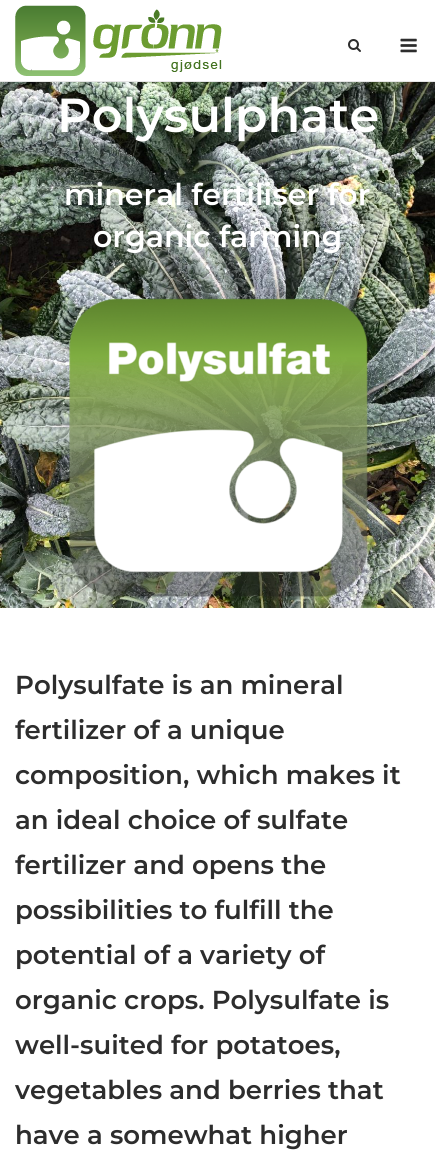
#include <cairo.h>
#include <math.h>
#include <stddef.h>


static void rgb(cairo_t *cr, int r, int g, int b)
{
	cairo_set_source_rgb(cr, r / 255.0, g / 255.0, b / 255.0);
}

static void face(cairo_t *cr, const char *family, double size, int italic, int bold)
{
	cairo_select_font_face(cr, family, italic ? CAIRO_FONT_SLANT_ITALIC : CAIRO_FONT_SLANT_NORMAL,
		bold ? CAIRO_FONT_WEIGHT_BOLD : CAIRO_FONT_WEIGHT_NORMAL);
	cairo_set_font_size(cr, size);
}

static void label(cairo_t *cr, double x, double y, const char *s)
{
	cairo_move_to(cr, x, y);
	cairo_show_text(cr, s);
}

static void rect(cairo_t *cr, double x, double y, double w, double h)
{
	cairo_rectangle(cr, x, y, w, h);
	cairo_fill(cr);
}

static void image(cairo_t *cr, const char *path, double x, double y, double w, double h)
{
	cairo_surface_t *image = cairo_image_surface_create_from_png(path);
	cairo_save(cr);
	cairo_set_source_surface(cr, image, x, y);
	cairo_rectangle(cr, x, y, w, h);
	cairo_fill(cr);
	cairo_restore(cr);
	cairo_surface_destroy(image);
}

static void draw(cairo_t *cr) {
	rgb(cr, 255, 255, 255);
	cairo_paint(cr);
	rgb(cr, 230, 230, 230);
	rect(cr, 0, 81, 435, 1);
	image(cr, "image0.png", 15, 5, 207, 71);
	image(cr, "image1.png", 348, 39, 13, 13);
	image(cr, "image2.png", 400, 38, 17, 15);
	image(cr, "image3.png", 0, 82, 435, 526);
	face(cr, "Montserrat SemiBold", 47.75, 0, 0);
	rgb(cr, 255, 255, 255);
	label(cr, 57, 132, "Polysulphate");
	face(cr, "Montserrat SemiBold", 30, 0, 0);
	label(cr, 64, 205, "mineral fertiliser for");
	label(cr, 93, 247, "organic farming");
	image(cr, "image4.png", 69, 298, 299, 299);
	face(cr, "Montserrat SemiBold", 26, 0, 0);
	rgb(cr, 45, 45, 45);
	label(cr, 15, 694, "Polysulfate is an mineral");
	label(cr, 15, 739, "fertilizer of a unique");
	label(cr, 15, 784, "composition, which makes it");
	label(cr, 15, 829, "an ideal choice of sulfate");
	label(cr, 15, 874, "fertilizer and opens the");
	label(cr, 15, 919, "possibilities to fulfill the");
	label(cr, 15, 964, "potential of a variety of");
	label(cr, 15, 1009, "organic crops. Polysulfate is");
	label(cr, 15, 1054, "well-suited for potatoes,");
	label(cr, 15, 1099, "vegetables and berries that");
	label(cr, 15, 1144, "have a somewhat higher");
}

int main(void) {
	cairo_surface_t *surface = cairo_image_surface_create(CAIRO_FORMAT_RGB24, 435, 1156);
	cairo_t *cr = cairo_create(surface);
	cairo_font_options_t *options = cairo_font_options_create();
	cairo_font_options_set_hint_metrics(options, CAIRO_HINT_METRICS_OFF);
	cairo_font_options_set_hint_style(options, CAIRO_HINT_STYLE_NONE);
	cairo_set_font_options(cr, options);
	cairo_set_miter_limit(cr, 4);
	draw(cr);
	cairo_surface_write_to_png(surface, "render.png");
	cairo_font_options_destroy(options);
	cairo_destroy(cr);
	cairo_surface_destroy(surface);
	return 0;
}
